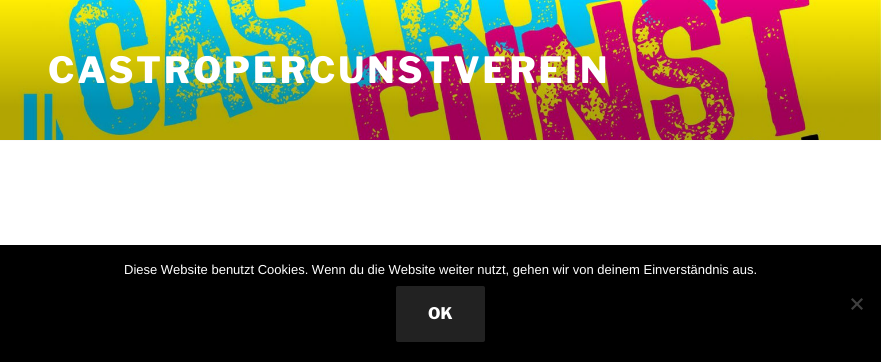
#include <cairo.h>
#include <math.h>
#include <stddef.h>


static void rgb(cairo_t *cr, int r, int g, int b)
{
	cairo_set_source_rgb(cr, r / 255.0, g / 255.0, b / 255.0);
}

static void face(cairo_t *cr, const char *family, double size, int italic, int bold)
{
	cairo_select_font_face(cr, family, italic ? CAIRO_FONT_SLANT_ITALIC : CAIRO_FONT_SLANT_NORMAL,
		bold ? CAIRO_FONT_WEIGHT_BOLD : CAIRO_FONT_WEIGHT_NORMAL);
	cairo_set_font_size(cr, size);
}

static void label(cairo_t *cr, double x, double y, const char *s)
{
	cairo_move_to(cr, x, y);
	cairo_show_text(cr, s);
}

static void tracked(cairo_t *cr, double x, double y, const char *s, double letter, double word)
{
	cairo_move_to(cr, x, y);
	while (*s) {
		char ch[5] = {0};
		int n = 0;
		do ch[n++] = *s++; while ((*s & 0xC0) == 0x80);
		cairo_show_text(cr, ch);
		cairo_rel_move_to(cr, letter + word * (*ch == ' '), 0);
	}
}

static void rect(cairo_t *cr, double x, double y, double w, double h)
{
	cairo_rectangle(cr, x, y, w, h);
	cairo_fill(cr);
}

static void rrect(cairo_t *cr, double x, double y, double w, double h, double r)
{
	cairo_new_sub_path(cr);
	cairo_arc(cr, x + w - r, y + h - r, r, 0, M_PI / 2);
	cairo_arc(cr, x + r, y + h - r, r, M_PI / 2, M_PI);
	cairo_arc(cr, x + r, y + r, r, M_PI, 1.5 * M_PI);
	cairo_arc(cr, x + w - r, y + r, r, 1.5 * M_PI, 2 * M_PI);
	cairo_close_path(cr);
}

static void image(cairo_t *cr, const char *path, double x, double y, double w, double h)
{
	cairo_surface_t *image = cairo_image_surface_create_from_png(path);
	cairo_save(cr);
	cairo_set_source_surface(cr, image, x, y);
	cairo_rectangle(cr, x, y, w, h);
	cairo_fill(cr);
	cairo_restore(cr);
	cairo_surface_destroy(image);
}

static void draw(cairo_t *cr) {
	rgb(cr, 255, 255, 255);
	cairo_paint(cr);
	rgb(cr, 250, 250, 250);
	rect(cr, 0, 140, 881, 1);
	image(cr, "image0.png", 0, 0, 881, 140);
	face(cr, "Libre Franklin Thin", 36, 0, 0);
	rgb(cr, 255, 255, 255);
	tracked(cr, 48, 83, "CASTROPERCUNSTVEREIN", 2.9, 0);
	rgb(cr, 0, 0, 0);
	rect(cr, 0, 245, 881, 117);
	face(cr, "Liberation Sans", 13, 0, 0);
	rgb(cr, 255, 255, 255);
	label(cr, 124, 274, "Diese Website benutzt Cookies. Wenn du die Website weiter nutzt, gehen wir von deinem Einverständnis aus.");
	rgb(cr, 64, 64, 64);
	cairo_new_path(cr);
	cairo_move_to(cr, 861.5, 298);
	cairo_line_to(cr, 863, 299.5);
	cairo_line_to(cr, 852.5, 310);
	cairo_line_to(cr, 851, 308.5);
	cairo_close_path(cr);
	cairo_fill(cr);
	cairo_new_path(cr);
	cairo_move_to(cr, 851, 299.5);
	cairo_line_to(cr, 852.5, 298);
	cairo_line_to(cr, 863, 308.5);
	cairo_line_to(cr, 861.5, 310);
	cairo_close_path(cr);
	cairo_fill(cr);
	rgb(cr, 34, 34, 34);
	rrect(cr, 396, 286, 89, 56, 2);
	cairo_fill(cr);
	face(cr, "Libre Franklin Thin", 16, 0, 0);
	rgb(cr, 255, 255, 255);
	label(cr, 428, 319, "OK");
}

int main(void) {
	cairo_surface_t *surface = cairo_image_surface_create(CAIRO_FORMAT_RGB24, 881, 362);
	cairo_t *cr = cairo_create(surface);
	cairo_font_options_t *options = cairo_font_options_create();
	cairo_font_options_set_hint_metrics(options, CAIRO_HINT_METRICS_OFF);
	cairo_font_options_set_hint_style(options, CAIRO_HINT_STYLE_NONE);
	cairo_set_font_options(cr, options);
	cairo_set_miter_limit(cr, 4);
	draw(cr);
	cairo_surface_write_to_png(surface, "render.png");
	cairo_font_options_destroy(options);
	cairo_destroy(cr);
	cairo_surface_destroy(surface);
	return 0;
}
